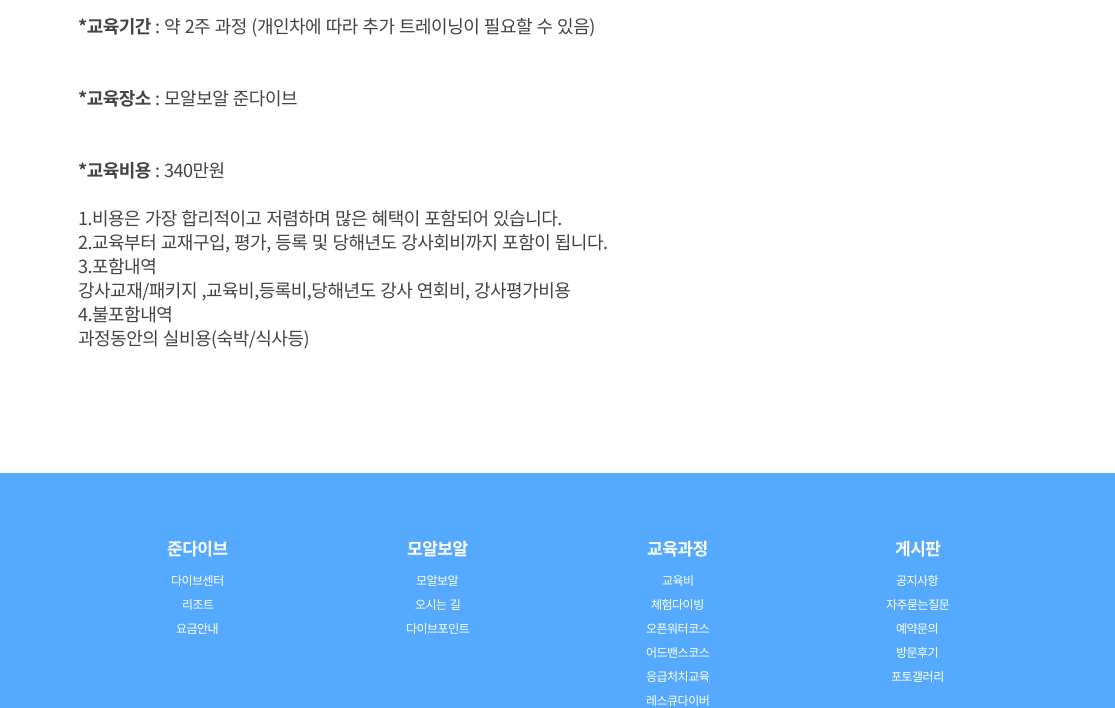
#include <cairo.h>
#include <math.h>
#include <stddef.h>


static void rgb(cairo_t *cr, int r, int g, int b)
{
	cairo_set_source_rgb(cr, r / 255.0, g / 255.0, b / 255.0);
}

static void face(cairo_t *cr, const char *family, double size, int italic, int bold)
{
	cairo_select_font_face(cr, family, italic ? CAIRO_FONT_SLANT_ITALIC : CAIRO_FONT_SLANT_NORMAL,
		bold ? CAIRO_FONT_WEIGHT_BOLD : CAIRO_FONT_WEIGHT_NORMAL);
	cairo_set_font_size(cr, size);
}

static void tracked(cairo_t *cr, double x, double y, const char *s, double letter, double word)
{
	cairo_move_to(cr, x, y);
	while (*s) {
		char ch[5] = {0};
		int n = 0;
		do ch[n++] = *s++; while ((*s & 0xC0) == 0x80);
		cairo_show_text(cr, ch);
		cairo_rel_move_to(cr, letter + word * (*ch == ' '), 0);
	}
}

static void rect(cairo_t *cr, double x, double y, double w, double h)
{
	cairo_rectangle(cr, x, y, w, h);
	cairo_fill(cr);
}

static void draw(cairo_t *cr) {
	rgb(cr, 255, 255, 255);
	cairo_paint(cr);
	face(cr, "Noto Sans KR", 18, 0, 1);
	rgb(cr, 68, 68, 68);
	tracked(cr, 78, 33, "*교육기간", -0.5, 0);
	face(cr, "Noto Sans KR", 18, 0, 0);
	tracked(cr, 155, 33, ": 약 2주 과정 (개인차에 따라 추가 트레이닝이 필요할 수 있음)", -0.5, 1);
	face(cr, "Noto Sans KR", 18, 0, 1);
	tracked(cr, 78, 105, "*교육장소", -0.5, 0);
	face(cr, "Noto Sans KR", 18, 0, 0);
	tracked(cr, 155, 105, ": 모알보알 준다이브", -0.5, 1);
	face(cr, "Noto Sans KR", 18, 0, 1);
	tracked(cr, 78, 177, "*교육비용", -0.5, 0);
	face(cr, "Noto Sans KR", 18, 0, 0);
	tracked(cr, 155, 177, ": 340만원", -0.5, 1);
	tracked(cr, 78, 225, "1.비용은 가장 합리적이고 저렴하며 많은 혜택이 포함되어 있습니다.", -0.5, 1);
	tracked(cr, 78, 249, "2.교육부터 교재구입, 평가, 등록 및 당해년도 강사회비까지 포함이 됩니다.", -0.5, 1);
	tracked(cr, 78, 273, "3.포함내역", -0.5, 0);
	tracked(cr, 78, 297, "강사교재/패키지 ,교육비,등록비,당해년도 강사 연회비, 강사평가비용", -0.5, 1);
	tracked(cr, 78, 321, "4.불포함내역", -0.5, 0);
	tracked(cr, 78, 345, "과정동안의 실비용(숙박/식사등)", -0.5, 1);
	rgb(cr, 85, 170, 255);
	rect(cr, 0, 473, 1115, 235);
	face(cr, "Noto Sans KR", 17, 0, 1);
	rgb(cr, 255, 255, 255);
	tracked(cr, 167, 555, "준다이브", -0.5, 0);
	face(cr, "Noto Sans KR", 12, 0, 0);
	tracked(cr, 171, 585, "다이브센터", -0.5, 0);
	tracked(cr, 182, 609, "리조트", -0.5, 0);
	tracked(cr, 176, 633, "요금안내", -0.5, 0);
	face(cr, "Noto Sans KR", 17, 0, 1);
	tracked(cr, 407, 555, "모알보알", -0.5, 0);
	face(cr, "Noto Sans KR", 12, 0, 0);
	tracked(cr, 416, 585, "모알보알", -0.5, 0);
	tracked(cr, 415, 609, "오시는 길", -0.5, 1);
	tracked(cr, 406, 633, "다이브포인트", -0.5, 0);
	face(cr, "Noto Sans KR", 17, 0, 1);
	tracked(cr, 647, 555, "교육과정", -0.5, 0);
	face(cr, "Noto Sans KR", 12, 0, 0);
	tracked(cr, 662, 585, "교육비", -0.5, 0);
	tracked(cr, 651, 609, "체험다이빙", -0.5, 0);
	tracked(cr, 646, 633, "오픈워터코스", -0.5, 0);
	tracked(cr, 646, 657, "어드밴스코스", -0.5, 0);
	tracked(cr, 646, 681, "응급처치교육", -0.5, 0);
	tracked(cr, 646, 705, "레스큐다이버", -0.5, 0);
	face(cr, "Noto Sans KR", 17, 0, 1);
	tracked(cr, 895, 555, "게시판", -0.5, 0);
	face(cr, "Noto Sans KR", 12, 0, 0);
	tracked(cr, 896, 585, "공지사항", -0.5, 0);
	tracked(cr, 886, 609, "자주묻는질문", -0.5, 0);
	tracked(cr, 896, 633, "예약문의", -0.5, 0);
	tracked(cr, 896, 657, "방문후기", -0.5, 0);
	tracked(cr, 891, 681, "포토갤러리", -0.5, 0);
}

int main(void) {
	cairo_surface_t *surface = cairo_image_surface_create(CAIRO_FORMAT_RGB24, 1115, 708);
	cairo_t *cr = cairo_create(surface);
	cairo_font_options_t *options = cairo_font_options_create();
	cairo_font_options_set_hint_metrics(options, CAIRO_HINT_METRICS_OFF);
	cairo_font_options_set_hint_style(options, CAIRO_HINT_STYLE_NONE);
	cairo_set_font_options(cr, options);
	cairo_set_miter_limit(cr, 4);
	draw(cr);
	cairo_surface_write_to_png(surface, "render.png");
	cairo_font_options_destroy(options);
	cairo_destroy(cr);
	cairo_surface_destroy(surface);
	return 0;
}
